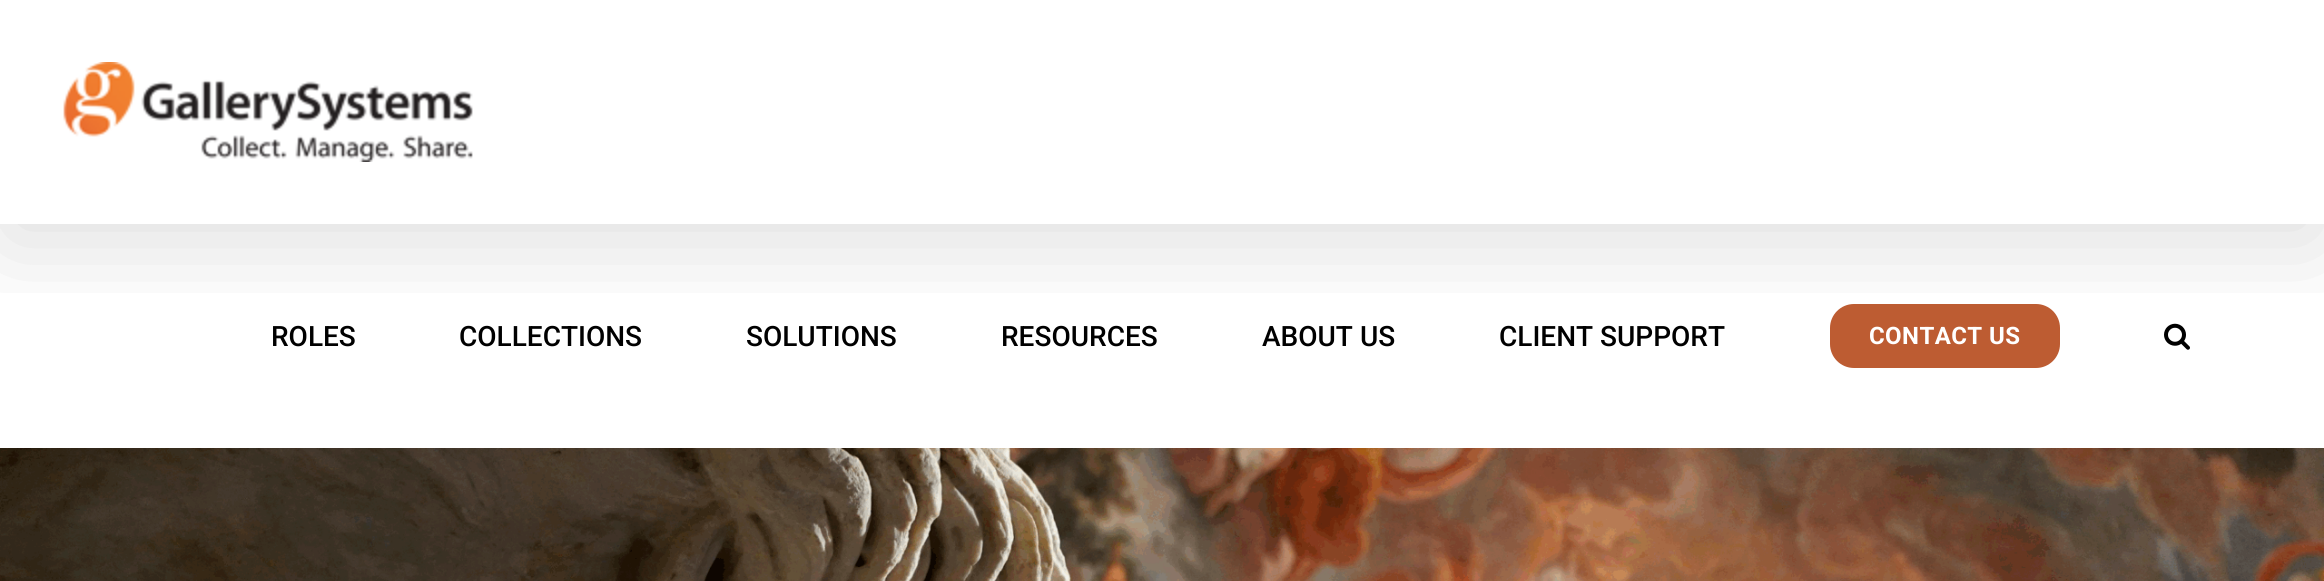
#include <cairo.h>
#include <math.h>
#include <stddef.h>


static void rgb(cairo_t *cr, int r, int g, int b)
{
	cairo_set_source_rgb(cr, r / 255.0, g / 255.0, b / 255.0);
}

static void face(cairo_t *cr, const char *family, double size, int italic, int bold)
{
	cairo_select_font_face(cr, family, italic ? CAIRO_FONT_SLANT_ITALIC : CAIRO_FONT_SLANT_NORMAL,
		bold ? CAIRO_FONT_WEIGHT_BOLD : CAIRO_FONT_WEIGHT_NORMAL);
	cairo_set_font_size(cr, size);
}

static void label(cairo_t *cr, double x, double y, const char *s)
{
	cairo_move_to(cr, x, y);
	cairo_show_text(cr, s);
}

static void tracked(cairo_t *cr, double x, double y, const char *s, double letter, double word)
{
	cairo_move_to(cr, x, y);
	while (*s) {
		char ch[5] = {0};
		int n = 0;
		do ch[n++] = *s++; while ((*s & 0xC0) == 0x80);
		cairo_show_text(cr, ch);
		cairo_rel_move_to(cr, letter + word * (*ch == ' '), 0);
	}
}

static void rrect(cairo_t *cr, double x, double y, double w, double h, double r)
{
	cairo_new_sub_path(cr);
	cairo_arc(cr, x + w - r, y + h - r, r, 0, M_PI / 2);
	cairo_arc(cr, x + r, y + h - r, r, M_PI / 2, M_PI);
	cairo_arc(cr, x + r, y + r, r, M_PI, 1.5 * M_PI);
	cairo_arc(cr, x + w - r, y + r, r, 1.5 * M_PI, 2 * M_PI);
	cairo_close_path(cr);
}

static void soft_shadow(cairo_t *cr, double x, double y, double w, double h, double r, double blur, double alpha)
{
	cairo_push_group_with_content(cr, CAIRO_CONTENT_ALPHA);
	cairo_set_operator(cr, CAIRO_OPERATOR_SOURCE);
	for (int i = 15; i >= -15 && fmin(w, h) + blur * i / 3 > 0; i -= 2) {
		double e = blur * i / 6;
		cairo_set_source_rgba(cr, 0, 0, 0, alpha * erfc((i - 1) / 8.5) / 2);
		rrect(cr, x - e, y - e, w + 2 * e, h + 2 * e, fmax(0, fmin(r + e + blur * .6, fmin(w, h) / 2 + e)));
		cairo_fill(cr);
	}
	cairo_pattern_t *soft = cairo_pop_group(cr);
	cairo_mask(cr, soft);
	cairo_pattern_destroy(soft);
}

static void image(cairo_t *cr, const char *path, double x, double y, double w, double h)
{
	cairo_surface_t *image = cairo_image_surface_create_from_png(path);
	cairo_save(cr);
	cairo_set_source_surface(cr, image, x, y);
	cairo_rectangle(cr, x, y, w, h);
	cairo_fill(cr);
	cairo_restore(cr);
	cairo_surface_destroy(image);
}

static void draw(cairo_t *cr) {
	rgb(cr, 255, 255, 255);
	cairo_paint(cr);
	cairo_save(cr);
	cairo_rectangle(cr, 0, 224, 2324, 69);
	cairo_clip(cr);
	rgb(cr, 0, 0, 0);
	soft_shadow(cr, 4, 24, 2316, 216, 0, 50, 0.14);
	cairo_restore(cr);
	image(cr, "image0.png", 63, 62, 410, 100);
	face(cr, "Roboto Medium", 28, 0, 0);
	rgb(cr, 0, 0, 0);
	label(cr, 271, 346, "ROLES");
	label(cr, 459, 346, "COLLECTIONS");
	label(cr, 746, 346, "SOLUTIONS");
	label(cr, 1001, 346, "RESOURCES");
	label(cr, 1262, 346, "ABOUT US");
	label(cr, 1499, 346, "CLIENT SUPPORT");
	rgb(cr, 189, 92, 50);
	rrect(cr, 1830, 304, 230, 64, 24);
	cairo_fill(cr);
	face(cr, "Roboto", 24, 0, 1);
	rgb(cr, 255, 255, 255);
	tracked(cr, 1869, 344, "CONTACT US", 0.4, 0);
	image(cr, "image1.png", 2164, 323, 26, 27);
	image(cr, "image2.png", 0, 448, 2324, 133);
}

int main(void) {
	cairo_surface_t *surface = cairo_image_surface_create(CAIRO_FORMAT_RGB24, 2324, 581);
	cairo_t *cr = cairo_create(surface);
	cairo_font_options_t *options = cairo_font_options_create();
	cairo_font_options_set_hint_metrics(options, CAIRO_HINT_METRICS_OFF);
	cairo_font_options_set_hint_style(options, CAIRO_HINT_STYLE_NONE);
	cairo_set_font_options(cr, options);
	cairo_set_miter_limit(cr, 4);
	draw(cr);
	cairo_surface_write_to_png(surface, "render.png");
	cairo_font_options_destroy(options);
	cairo_destroy(cr);
	cairo_surface_destroy(surface);
	return 0;
}
